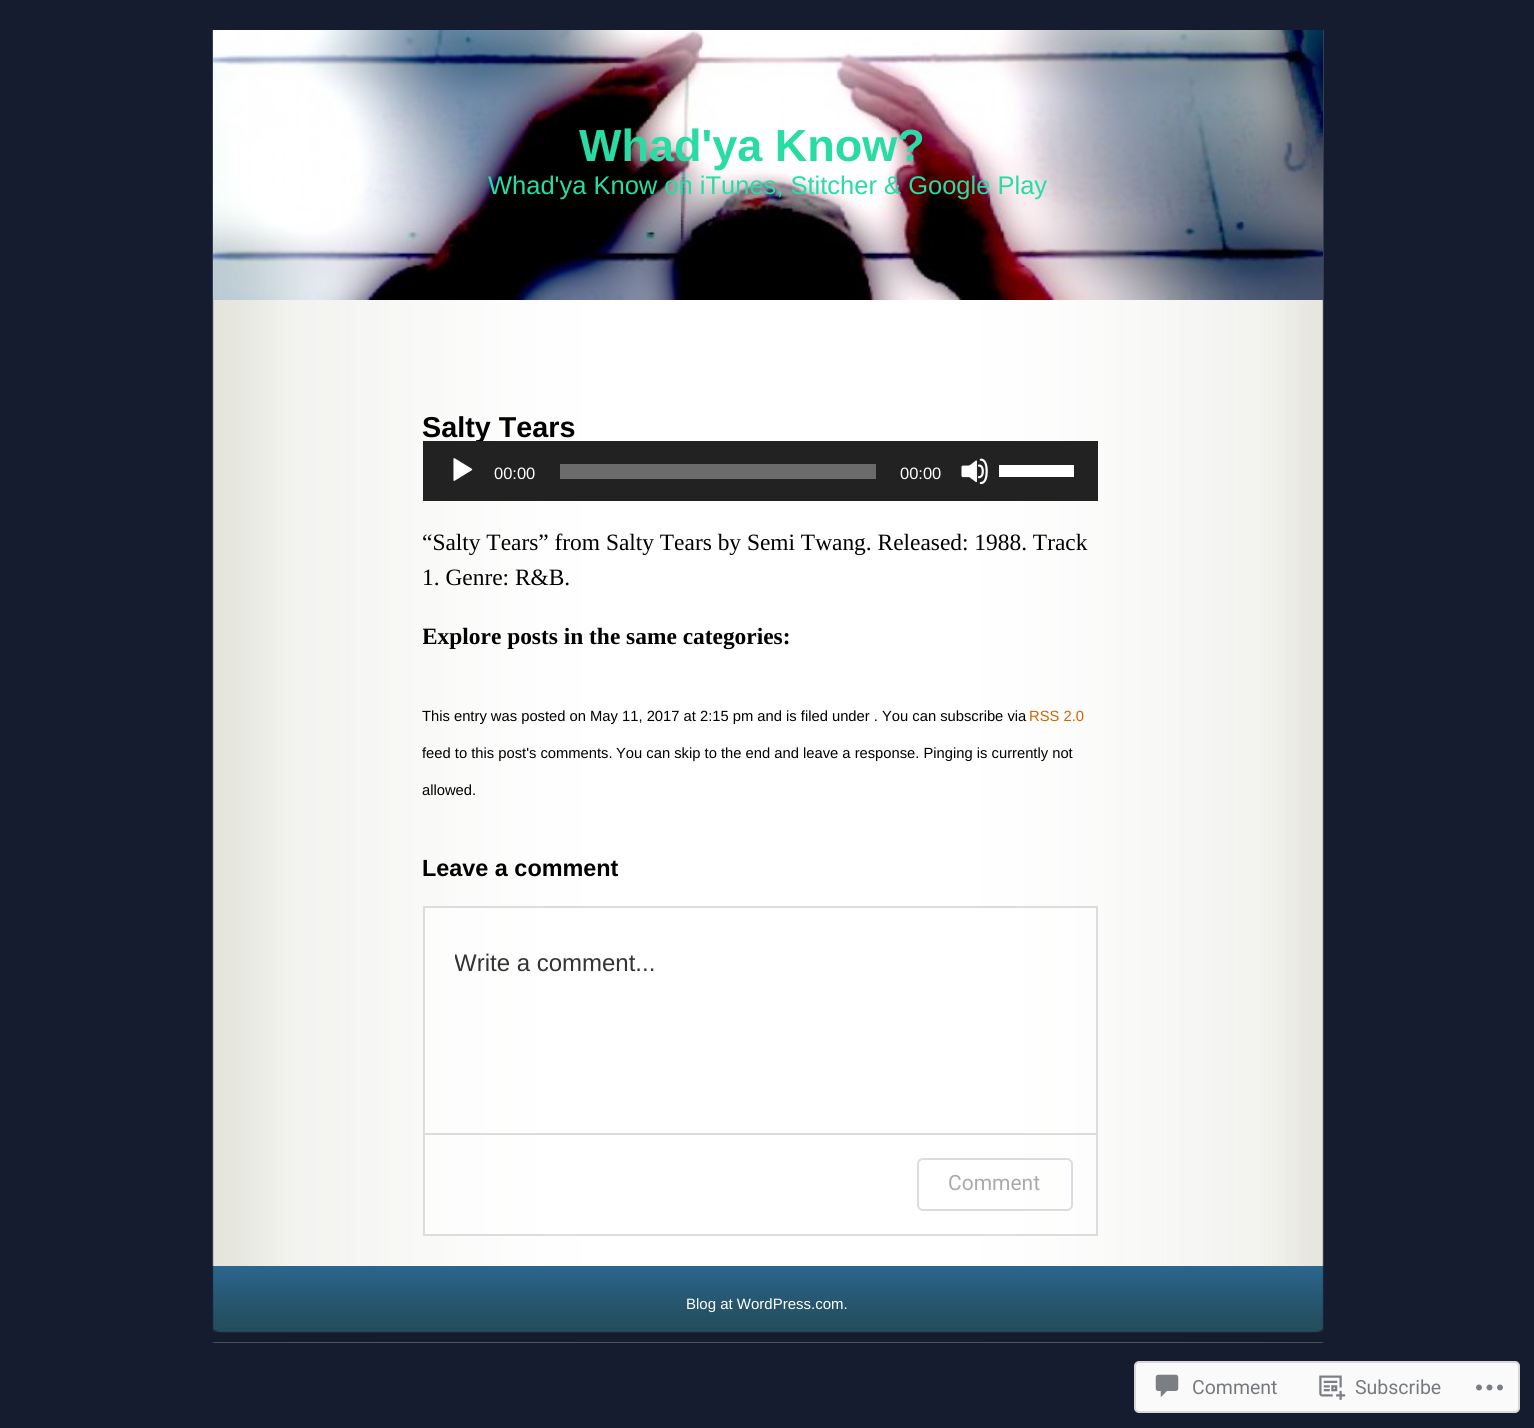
#include <cairo.h>
#include <math.h>
#include <stddef.h>


static void rgb(cairo_t *cr, int r, int g, int b)
{
	cairo_set_source_rgb(cr, r / 255.0, g / 255.0, b / 255.0);
}

static void face(cairo_t *cr, const char *family, double size, int italic, int bold)
{
	cairo_select_font_face(cr, family, italic ? CAIRO_FONT_SLANT_ITALIC : CAIRO_FONT_SLANT_NORMAL,
		bold ? CAIRO_FONT_WEIGHT_BOLD : CAIRO_FONT_WEIGHT_NORMAL);
	cairo_set_font_size(cr, size);
}

static void label(cairo_t *cr, double x, double y, const char *s)
{
	cairo_move_to(cr, x, y);
	cairo_show_text(cr, s);
}

static void rect(cairo_t *cr, double x, double y, double w, double h)
{
	cairo_rectangle(cr, x, y, w, h);
	cairo_fill(cr);
}

static void rrect(cairo_t *cr, double x, double y, double w, double h, double r)
{
	cairo_new_sub_path(cr);
	cairo_arc(cr, x + w - r, y + h - r, r, 0, M_PI / 2);
	cairo_arc(cr, x + r, y + h - r, r, M_PI / 2, M_PI);
	cairo_arc(cr, x + r, y + r, r, M_PI, 1.5 * M_PI);
	cairo_arc(cr, x + w - r, y + r, r, 1.5 * M_PI, 2 * M_PI);
	cairo_close_path(cr);
}

static void image(cairo_t *cr, const char *path, double x, double y, double w, double h)
{
	cairo_surface_t *image = cairo_image_surface_create_from_png(path);
	cairo_save(cr);
	cairo_set_source_surface(cr, image, x, y);
	cairo_rectangle(cr, x, y, w, h);
	cairo_fill(cr);
	cairo_restore(cr);
	cairo_surface_destroy(image);
}

static void draw(cairo_t *cr) {
	rgb(cr, 21, 28, 47);
	cairo_paint(cr);
	image(cr, "image0.png", 212, 30, 1112, 1313);
	image(cr, "image1.png", 213, 30, 1110, 270);
	face(cr, "Liberation Sans", 45, 0, 1);
	rgb(cr, 40, 220, 163);
	label(cr, 579, 161, "Whad'ya Know?");
	face(cr, "Liberation Sans", 25.5, 0, 0);
	label(cr, 488, 194, "Whad'ya Know on iTunes, Stitcher & Google Play");
	face(cr, "Liberation Sans", 28.75, 0, 1);
	rgb(cr, 0, 0, 0);
	label(cr, 422, 437, "Salty Tears");
	rgb(cr, 34, 34, 34);
	rect(cr, 423, 441, 675, 60);
	image(cr, "image2.png", 453, 458, 20, 23);
	face(cr, "Liberation Sans", 16.5, 0, 0);
	rgb(cr, 255, 255, 255);
	label(cr, 494, 479, "00:00");
	rgb(cr, 107, 107, 107);
	rect(cr, 560, 464, 316, 15);
	rgb(cr, 255, 255, 255);
	label(cr, 900, 479, "00:00");
	image(cr, "image3.png", 961, 458, 27, 27);
	rect(cr, 999, 465, 75, 12);
	face(cr, "Liberation Serif", 23.4, 0, 0);
	rgb(cr, 0, 0, 0);
	label(cr, 422, 550, "“Salty Tears” from Salty Tears by Semi Twang. Released: 1988. Track");
	label(cr, 422, 585, "1. Genre: R&B.");
	cairo_save(cr);
	cairo_rectangle(cr, 423, 308, 675, 958);
	cairo_clip(cr);
	face(cr, "Liberation Serif", 23.4, 0, 1);
	label(cr, 422, 644, "Explore posts in the same categories:");
	cairo_restore(cr);
	face(cr, "Liberation Sans", 14.75, 0, 0);
	label(cr, 422, 721, "This entry was posted on May 11, 2017 at 2:15 pm and is filed under . You can subscribe via");
	rgb(cr, 204, 102, 0);
	label(cr, 1029, 721, "RSS 2.0");
	rgb(cr, 0, 0, 0);
	label(cr, 422, 758, "feed to this post's comments.");
	label(cr, 616, 758, "You can skip to the end and leave a response. Pinging is currently not");
	label(cr, 422, 795, "allowed.");
	face(cr, "Liberation Sans", 23.4, 0, 1);
	label(cr, 422, 876, "Leave a comment");
	cairo_set_source_rgba(cr, 1, 1, 1, 0.6);
	cairo_rectangle(cr, 424, 907, 673, 328);
	cairo_fill_preserve(cr);
	rgb(cr, 220, 220, 222);
	cairo_stroke(cr);
	cairo_save(cr);
	cairo_rectangle(cr, 455, 950, 612, 28);
	cairo_clip(cr);
	face(cr, "Liberation Sans", 24, 0, 0);
	rgb(cr, 51, 51, 51);
	label(cr, 454, 971, "Write a comment...");
	cairo_restore(cr);
	rect(cr, 425, 1133, 672, 2);
	rrect(cr, 918, 1159, 154, 51, 5);
	cairo_stroke(cr);
	face(cr, "Roboto", 21, 0, 0);
	rgb(cr, 167, 170, 173);
	label(cr, 948, 1190, "Comment");
	image(cr, "image4.png", 212, 1266, 1112, 77);
	face(cr, "Liberation Sans", 15, 0, 0);
	rgb(cr, 255, 255, 255);
	label(cr, 686, 1309, "Blog at WordPress.com.");
	rgb(cr, 250, 250, 251);
	rrect(cr, 1135, 1362, 384, 50, 4);
	cairo_fill_preserve(cr);
	rgb(cr, 216, 216, 219);
	cairo_stroke(cr);
	image(cr, "image5.png", 1155, 1374, 24, 24);
	face(cr, "Roboto", 19.5, 0, 0);
	rgb(cr, 118, 122, 128);
	label(cr, 1192, 1394, "Comment");
	image(cr, "image6.png", 1319, 1375, 27, 25);
	label(cr, 1355, 1394, "Subscribe");
	image(cr, "image7.png", 1476, 1384, 27, 7);
}

int main(void) {
	cairo_surface_t *surface = cairo_image_surface_create(CAIRO_FORMAT_RGB24, 1534, 1428);
	cairo_t *cr = cairo_create(surface);
	cairo_font_options_t *options = cairo_font_options_create();
	cairo_font_options_set_hint_metrics(options, CAIRO_HINT_METRICS_OFF);
	cairo_font_options_set_hint_style(options, CAIRO_HINT_STYLE_NONE);
	cairo_set_font_options(cr, options);
	cairo_set_miter_limit(cr, 4);
	draw(cr);
	cairo_surface_write_to_png(surface, "render.png");
	cairo_font_options_destroy(options);
	cairo_destroy(cr);
	cairo_surface_destroy(surface);
	return 0;
}
